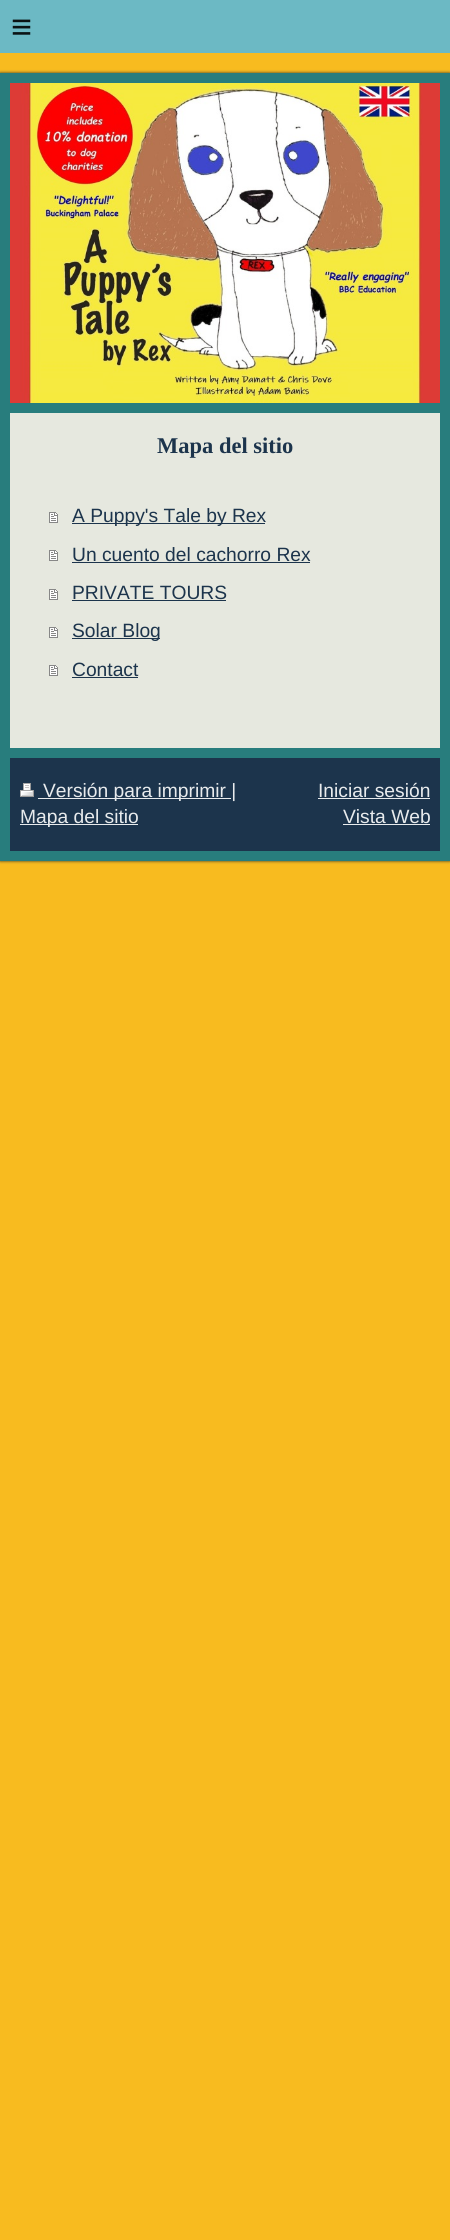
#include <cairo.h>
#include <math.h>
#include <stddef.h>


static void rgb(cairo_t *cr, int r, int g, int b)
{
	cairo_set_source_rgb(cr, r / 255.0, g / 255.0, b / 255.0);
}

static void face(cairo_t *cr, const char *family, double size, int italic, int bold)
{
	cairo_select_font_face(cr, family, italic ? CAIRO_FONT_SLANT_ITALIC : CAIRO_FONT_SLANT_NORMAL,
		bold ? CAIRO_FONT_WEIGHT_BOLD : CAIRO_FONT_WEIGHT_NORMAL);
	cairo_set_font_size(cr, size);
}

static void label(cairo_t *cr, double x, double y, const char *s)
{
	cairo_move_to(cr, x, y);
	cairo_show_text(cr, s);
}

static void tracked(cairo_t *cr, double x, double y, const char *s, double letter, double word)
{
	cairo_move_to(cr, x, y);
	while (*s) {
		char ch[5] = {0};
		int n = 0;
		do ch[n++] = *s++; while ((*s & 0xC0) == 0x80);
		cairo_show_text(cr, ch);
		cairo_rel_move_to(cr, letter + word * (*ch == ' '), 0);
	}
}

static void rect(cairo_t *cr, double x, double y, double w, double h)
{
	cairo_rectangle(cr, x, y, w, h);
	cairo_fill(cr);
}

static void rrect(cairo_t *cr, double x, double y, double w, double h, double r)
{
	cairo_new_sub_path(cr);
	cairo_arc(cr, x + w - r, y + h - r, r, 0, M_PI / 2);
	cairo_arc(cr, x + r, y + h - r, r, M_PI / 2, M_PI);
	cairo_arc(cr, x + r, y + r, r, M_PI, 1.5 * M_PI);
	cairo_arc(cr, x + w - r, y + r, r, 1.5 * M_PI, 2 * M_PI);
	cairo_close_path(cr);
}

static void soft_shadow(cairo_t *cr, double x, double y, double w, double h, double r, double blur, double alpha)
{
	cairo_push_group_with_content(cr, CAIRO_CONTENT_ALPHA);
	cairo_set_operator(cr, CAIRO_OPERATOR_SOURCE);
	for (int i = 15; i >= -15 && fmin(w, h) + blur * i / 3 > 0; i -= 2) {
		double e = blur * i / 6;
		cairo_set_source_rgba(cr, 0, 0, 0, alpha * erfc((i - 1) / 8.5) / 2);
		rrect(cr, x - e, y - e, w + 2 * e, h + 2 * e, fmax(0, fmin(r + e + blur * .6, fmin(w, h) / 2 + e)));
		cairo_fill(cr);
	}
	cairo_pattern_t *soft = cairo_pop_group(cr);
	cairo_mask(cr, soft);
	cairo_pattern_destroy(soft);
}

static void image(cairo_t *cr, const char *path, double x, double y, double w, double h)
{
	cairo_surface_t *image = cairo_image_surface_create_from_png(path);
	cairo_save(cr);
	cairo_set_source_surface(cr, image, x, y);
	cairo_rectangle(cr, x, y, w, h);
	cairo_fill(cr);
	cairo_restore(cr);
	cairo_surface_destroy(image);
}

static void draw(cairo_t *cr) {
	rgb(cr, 248, 187, 31);
	cairo_paint(cr);
	rgb(cr, 108, 185, 196);
	rect(cr, 0, 0, 450, 53);
	face(cr, "Liberation Sans", 36, 0, 0);
	rgb(cr, 11, 19, 20);
	tracked(cr, 11, 39, "≡", 10, 0);
	rgb(cr, 46, 48, 40);
	soft_shadow(cr, 0, 73, 450, 788, 0, 1.5, 1);
	rgb(cr, 230, 232, 223);
	rect(cr, 10, 413, 430, 335);
	cairo_rectangle(cr, 5, 78, 440, 330);
	rgb(cr, 40, 125, 125);
	cairo_set_line_width(cr, 10);
	cairo_stroke(cr);
	image(cr, "image0.png", 10, 83, 430, 320);
	rect(cr, 440, 413, 10, 335);
	rect(cr, 10, 748, 440, 10);
	rect(cr, 0, 413, 10, 448);
	face(cr, "Liberation Serif", 22.5, 0, 1);
	rgb(cr, 28, 52, 76);
	label(cr, 157, 453, "Mapa del sitio");
	image(cr, "image1.png", 49, 512, 9, 11);
	rect(cr, 72, 523, 193, 1);
	face(cr, "Liberation Sans", 19.25, 0, 0);
	label(cr, 72, 522, "A Puppy's Tale by Rex");
	image(cr, "image1.png", 49, 550, 9, 11);
	label(cr, 72, 561, "Un cuento del cachorro Rex");
	rect(cr, 72, 562, 238, 1);
	image(cr, "image1.png", 49, 589, 9, 11);
	label(cr, 72, 599, "PRIVATE TOURS");
	rect(cr, 72, 600, 154, 1);
	image(cr, "image1.png", 49, 627, 9, 11);
	rect(cr, 72, 638, 88, 1);
	label(cr, 72, 637, "Solar Blog");
	image(cr, "image1.png", 49, 665, 9, 11);
	label(cr, 72, 676, "Contact");
	rect(cr, 72, 677, 66, 1);
	rect(cr, 10, 758, 430, 93);
	rgb(cr, 40, 125, 125);
	rect(cr, 440, 758, 10, 93);
	rect(cr, 10, 851, 440, 10);
	image(cr, "image2.png", 20, 783, 14, 14);
	rgb(cr, 232, 235, 237);
	rect(cr, 38, 798, 193, 1);
	label(cr, 43, 797, "Versión para imprimir |");
	rect(cr, 20, 824, 118, 1);
	label(cr, 20, 823, "Mapa del sitio");
	label(cr, 318, 797, "Iniciar sesión");
	rect(cr, 318, 798, 112, 1);
	label(cr, 343, 823, "Vista Web");
	rect(cr, 343, 824, 87, 1);
}

int main(void) {
	cairo_surface_t *surface = cairo_image_surface_create(CAIRO_FORMAT_RGB24, 450, 2240);
	cairo_t *cr = cairo_create(surface);
	cairo_font_options_t *options = cairo_font_options_create();
	cairo_font_options_set_hint_metrics(options, CAIRO_HINT_METRICS_OFF);
	cairo_font_options_set_hint_style(options, CAIRO_HINT_STYLE_NONE);
	cairo_set_font_options(cr, options);
	cairo_set_miter_limit(cr, 4);
	draw(cr);
	cairo_surface_write_to_png(surface, "render.png");
	cairo_font_options_destroy(options);
	cairo_destroy(cr);
	cairo_surface_destroy(surface);
	return 0;
}
